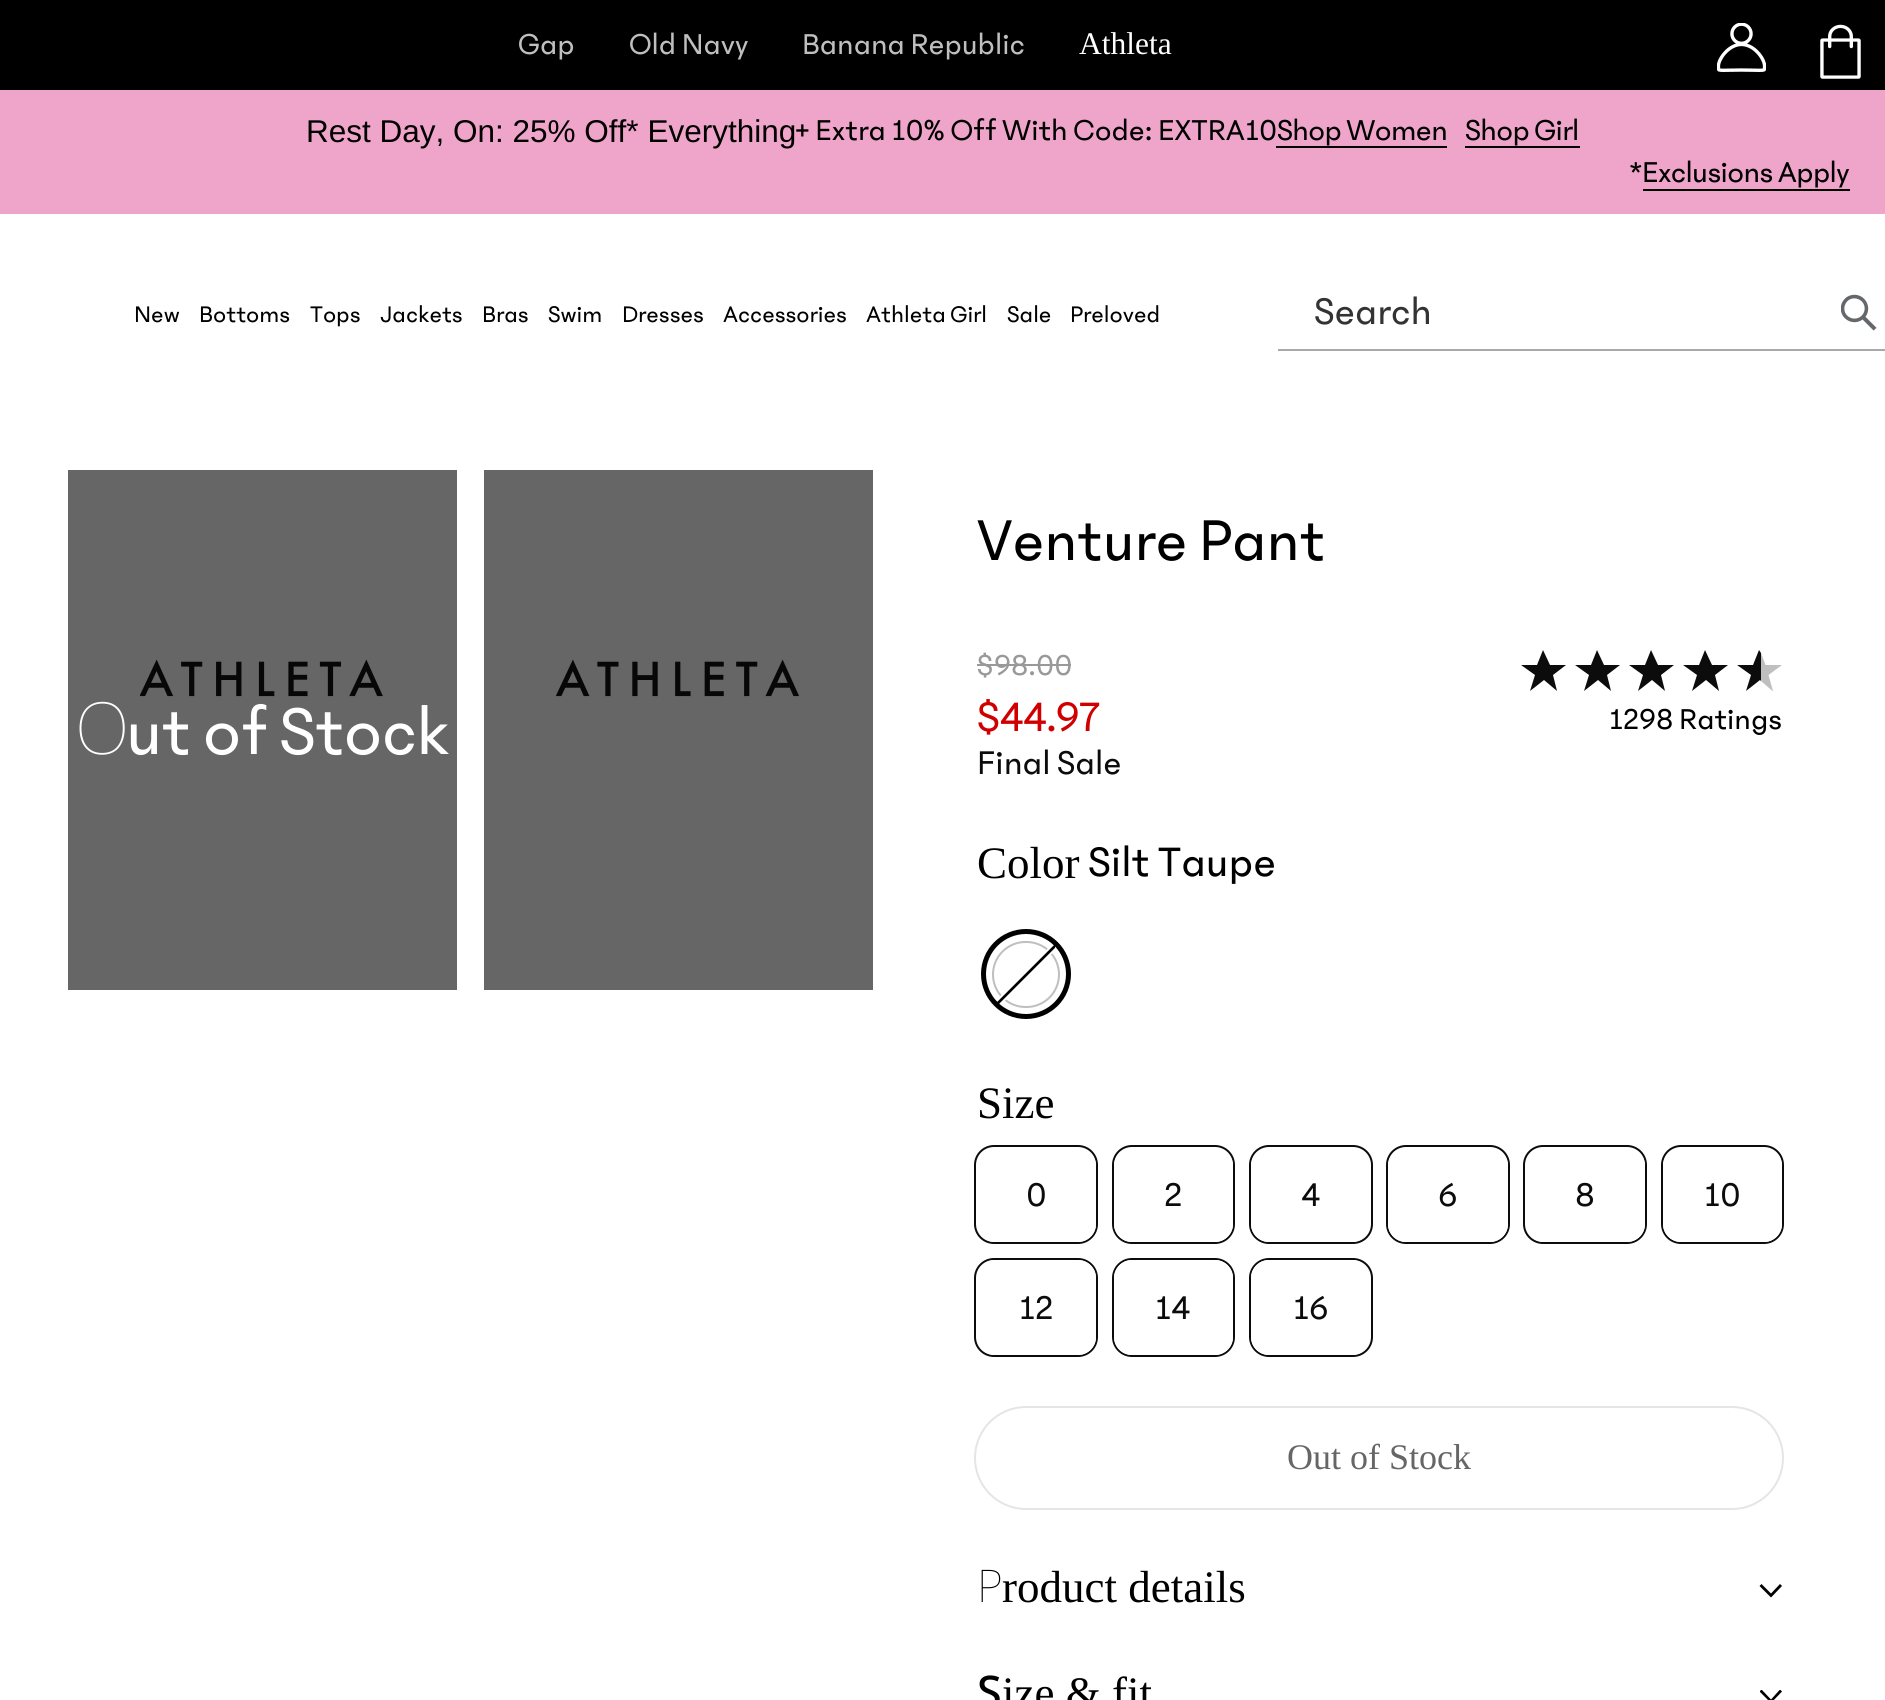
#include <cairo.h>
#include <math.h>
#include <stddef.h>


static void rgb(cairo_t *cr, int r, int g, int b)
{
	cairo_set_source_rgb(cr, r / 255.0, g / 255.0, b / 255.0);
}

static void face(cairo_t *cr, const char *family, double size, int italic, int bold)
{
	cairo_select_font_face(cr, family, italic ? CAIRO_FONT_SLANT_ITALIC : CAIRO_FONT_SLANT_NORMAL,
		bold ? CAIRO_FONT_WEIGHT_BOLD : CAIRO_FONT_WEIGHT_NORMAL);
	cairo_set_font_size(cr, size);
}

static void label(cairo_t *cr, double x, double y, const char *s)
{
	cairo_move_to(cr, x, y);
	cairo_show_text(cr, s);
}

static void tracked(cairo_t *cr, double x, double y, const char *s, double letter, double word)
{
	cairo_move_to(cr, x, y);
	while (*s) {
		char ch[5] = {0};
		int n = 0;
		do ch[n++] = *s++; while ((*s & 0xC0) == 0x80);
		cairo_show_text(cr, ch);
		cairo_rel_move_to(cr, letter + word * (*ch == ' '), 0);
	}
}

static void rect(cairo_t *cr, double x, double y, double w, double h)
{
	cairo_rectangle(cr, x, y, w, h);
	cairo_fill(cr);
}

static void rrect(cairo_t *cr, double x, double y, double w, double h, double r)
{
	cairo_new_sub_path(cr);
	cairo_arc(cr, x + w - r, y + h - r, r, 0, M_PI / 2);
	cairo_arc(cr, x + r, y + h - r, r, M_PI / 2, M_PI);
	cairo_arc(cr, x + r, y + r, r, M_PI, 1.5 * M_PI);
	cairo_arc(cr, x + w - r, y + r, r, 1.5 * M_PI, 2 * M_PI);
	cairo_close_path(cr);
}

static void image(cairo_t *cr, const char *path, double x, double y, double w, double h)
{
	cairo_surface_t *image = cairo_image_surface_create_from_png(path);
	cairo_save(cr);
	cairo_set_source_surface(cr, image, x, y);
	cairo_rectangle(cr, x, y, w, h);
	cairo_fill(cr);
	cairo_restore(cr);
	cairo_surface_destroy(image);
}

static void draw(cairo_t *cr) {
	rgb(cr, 255, 255, 255);
	cairo_paint(cr);
	rgb(cr, 0, 0, 0);
	rect(cr, 0, 0, 1885, 90);
	face(cr, "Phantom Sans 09", 31.5, 0, 0);
	rgb(cr, 191, 191, 191);
	label(cr, 518, 54, "Gap");
	label(cr, 629, 54, "Old Navy");
	label(cr, 802, 54, "Banana Republic");
	face(cr, "Liberation Serif", 31.5, 0, 0);
	rgb(cr, 255, 255, 255);
	label(cr, 1079, 54, "Athleta");
	image(cr, "image0.png", 1717, 23, 49, 49);
	image(cr, "image1.png", 1820, 24, 41, 55);
	rgb(cr, 239, 165, 202);
	rect(cr, 0, 90, 1885, 124);
	face(cr, "Liberation Sans", 31.5, 0, 0);
	rgb(cr, 0, 0, 0);
	label(cr, 306, 142, "Rest Day, On: 25% Off* Everything");
	face(cr, "Phantom Sans 09", 31.5, 0, 0);
	label(cr, 795, 140, "+ Extra 10% Off With Code: EXTRA10");
	tracked(cr, 1277, 140, "Shop Women", -0.6, 0);
	rect(cr, 1276, 146, 171, 2);
	tracked(cr, 1465, 140, "Shop Girl", -0.6, 0);
	rect(cr, 1465, 146, 115, 2);
	tracked(cr, 1629, 182, "*Exclusions Apply", -0.6, 0);
	rect(cr, 1643, 189, 207, 2);
	face(cr, "Phantom Sans 09", 24.75, 0, 0);
	label(cr, 134, 322, "New");
	label(cr, 199, 322, "Bottoms");
	label(cr, 310, 322, "Tops");
	label(cr, 380, 322, "Jackets");
	label(cr, 482, 322, "Bras");
	label(cr, 548, 322, "Swim");
	label(cr, 622, 322, "Dresses");
	label(cr, 723, 322, "Accessories");
	label(cr, 866, 322, "Athleta Girl");
	label(cr, 1007, 322, "Sale");
	label(cr, 1070, 322, "Preloved");
	rgb(cr, 167, 169, 172);
	rect(cr, 1278, 349, 607, 2);
	face(cr, "Phantom Sans 09", 40.5, 0, 0);
	rgb(cr, 51, 51, 51);
	label(cr, 1314, 324, "Search");
	image(cr, "image2.png", 1841, 294, 36, 37);
	rgb(cr, 102, 102, 102);
	rect(cr, 484, 470, 389, 520);
	rect(cr, 68, 470, 389, 520);
	image(cr, "image3.png", 556, 659, 243, 38);
	image(cr, "image4.png", 140, 659, 243, 38);
	face(cr, "Noto Sans Thin", 72, 0, 0);
	rgb(cr, 255, 255, 255);
	tracked(cr, 75, 754, "O", -0.5, 0);
	face(cr, "Phantom Sans 09", 72, 0, 0);
	tracked(cr, 126, 754, "ut of Stock", -0.5, 0);
	face(cr, "Phantom Sans 09", 63, 0, 0);
	rgb(cr, 0, 0, 0);
	label(cr, 977, 560, "Venture Pant");
	face(cr, "Phantom Sans 09", 31.5, 0, 0);
	rgb(cr, 153, 153, 153);
	label(cr, 977, 675, "$98.00");
	rect(cr, 977, 664, 94, 2);
	face(cr, "Phantom Sans 09", 45, 0, 0);
	rgb(cr, 208, 0, 0);
	tracked(cr, 977, 731, "$44.97", -1.5, 0);
	rgb(cr, 12, 12, 12);
	cairo_new_path(cr);
	cairo_move_to(cr, 1544, 680);
	cairo_line_to(cr, 1557, 691);
	cairo_line_to(cr, 1553, 675);
	cairo_line_to(cr, 1566, 665);
	cairo_line_to(cr, 1550, 665);
	cairo_line_to(cr, 1543, 650);
	cairo_line_to(cr, 1537, 665);
	cairo_line_to(cr, 1521, 665);
	cairo_line_to(cr, 1535, 675);
	cairo_line_to(cr, 1530, 691);
	cairo_close_path(cr);
	cairo_fill(cr);
	cairo_new_path(cr);
	cairo_move_to(cr, 1598, 680);
	cairo_line_to(cr, 1611, 691);
	cairo_line_to(cr, 1607, 675);
	cairo_line_to(cr, 1620, 665);
	cairo_line_to(cr, 1604, 665);
	cairo_line_to(cr, 1597, 650);
	cairo_line_to(cr, 1591, 665);
	cairo_line_to(cr, 1575, 665);
	cairo_line_to(cr, 1589, 675);
	cairo_line_to(cr, 1584, 691);
	cairo_close_path(cr);
	cairo_fill(cr);
	cairo_new_path(cr);
	cairo_move_to(cr, 1652, 680);
	cairo_line_to(cr, 1665, 691);
	cairo_line_to(cr, 1661, 675);
	cairo_line_to(cr, 1674, 665);
	cairo_line_to(cr, 1658, 665);
	cairo_line_to(cr, 1651, 650);
	cairo_line_to(cr, 1645, 665);
	cairo_line_to(cr, 1629, 665);
	cairo_line_to(cr, 1643, 675);
	cairo_line_to(cr, 1638, 691);
	cairo_close_path(cr);
	cairo_fill(cr);
	cairo_new_path(cr);
	cairo_move_to(cr, 1706, 680);
	cairo_line_to(cr, 1719, 691);
	cairo_line_to(cr, 1715, 675);
	cairo_line_to(cr, 1728, 665);
	cairo_line_to(cr, 1712, 665);
	cairo_line_to(cr, 1705, 650);
	cairo_line_to(cr, 1699, 665);
	cairo_line_to(cr, 1683, 665);
	cairo_line_to(cr, 1697, 675);
	cairo_line_to(cr, 1692, 691);
	cairo_close_path(cr);
	cairo_fill(cr);
	cairo_new_path(cr);
	cairo_move_to(cr, 1760, 680);
	cairo_line_to(cr, 1761, 681);
	cairo_line_to(cr, 1761, 653);
	cairo_line_to(cr, 1759, 650);
	cairo_line_to(cr, 1753, 665);
	cairo_line_to(cr, 1737, 665);
	cairo_line_to(cr, 1751, 675);
	cairo_line_to(cr, 1746, 691);
	cairo_close_path(cr);
	cairo_fill(cr);
	rgb(cr, 191, 191, 191);
	cairo_new_path(cr);
	cairo_move_to(cr, 1772.5, 691);
	cairo_line_to(cr, 1761, 681);
	cairo_line_to(cr, 1761, 653);
	cairo_line_to(cr, 1765.5, 665);
	cairo_line_to(cr, 1782, 665);
	cairo_line_to(cr, 1768.5, 675);
	cairo_line_to(cr, 1773, 691);
	cairo_close_path(cr);
	cairo_fill(cr);
	face(cr, "Phantom Sans 09", 31.5, 0, 0);
	rgb(cr, 0, 0, 0);
	label(cr, 1609, 729, "1298 Ratings");
	face(cr, "Phantom Sans 09", 36, 0, 0);
	rgb(cr, 12, 12, 12);
	label(cr, 977, 774, "Final Sale");
	face(cr, "Liberation Serif", 45, 0, 0);
	rgb(cr, 0, 0, 0);
	label(cr, 977, 878, "Color");
	face(cr, "Phantom Sans 09", 45, 0, 0);
	label(cr, 1088, 876, "Silt Taupe");
	cairo_new_path(cr);
	cairo_arc(cr, 1026, 974, 42.5, 0, 2 * M_PI);
	cairo_set_line_width(cr, 5);
	cairo_stroke(cr);
	rrect(cr, 993, 942, 66, 65, 32.5);
	rgb(cr, 191, 191, 191);
	cairo_set_line_width(cr, 2);
	cairo_stroke(cr);
	cairo_new_path(cr);
	cairo_move_to(cr, 1000.5, 1000.5);
	cairo_line_to(cr, 1053, 948);
	rgb(cr, 255, 255, 255);
	cairo_set_line_width(cr, 6.6);
	cairo_stroke(cr);
	cairo_save(cr);
	cairo_rectangle(cr, 997, 925, 58, 99);
	cairo_clip(cr);
	cairo_new_path(cr);
	cairo_move_to(cr, 997, 1004);
	cairo_line_to(cr, 1056.5, 944.5);
	rgb(cr, 0, 0, 0);
	cairo_set_line_width(cr, 2.7);
	cairo_stroke(cr);
	cairo_restore(cr);
	face(cr, "Liberation Serif", 45, 0, 0);
	rgb(cr, 0, 0, 0);
	label(cr, 977, 1118, "Size");
	rrect(cr, 975, 1146, 122, 97, 19);
	rgb(cr, 12, 12, 12);
	cairo_set_line_width(cr, 2);
	cairo_stroke(cr);
	rgb(cr, 255, 255, 255);
	rrect(cr, 977, 1148, 119, 94, 18);
	cairo_fill(cr);
	face(cr, "Phantom Sans 09", 36, 0, 0);
	rgb(cr, 12, 12, 12);
	label(cr, 1026, 1206, "0");
	rrect(cr, 1113, 1146, 121, 97, 19);
	cairo_stroke(cr);
	rgb(cr, 255, 255, 255);
	rrect(cr, 1114, 1148, 119, 94, 18);
	cairo_fill(cr);
	rgb(cr, 12, 12, 12);
	label(cr, 1164, 1206, "2");
	rrect(cr, 1250, 1146, 122, 97, 19);
	cairo_stroke(cr);
	rgb(cr, 255, 255, 255);
	rrect(cr, 1251, 1148, 119, 94, 18);
	cairo_fill(cr);
	rgb(cr, 12, 12, 12);
	label(cr, 1301, 1206, "4");
	rrect(cr, 1387, 1146, 122, 97, 19);
	cairo_stroke(cr);
	rgb(cr, 255, 255, 255);
	rrect(cr, 1388, 1148, 120, 94, 18);
	cairo_fill(cr);
	rgb(cr, 12, 12, 12);
	label(cr, 1438, 1206, "6");
	rrect(cr, 1524, 1146, 122, 97, 19);
	cairo_stroke(cr);
	rgb(cr, 255, 255, 255);
	rrect(cr, 1526, 1148, 119, 94, 18);
	cairo_fill(cr);
	rgb(cr, 12, 12, 12);
	label(cr, 1575, 1206, "8");
	rrect(cr, 1662, 1146, 121, 97, 19);
	cairo_stroke(cr);
	rgb(cr, 255, 255, 255);
	rrect(cr, 1663, 1148, 119, 94, 18);
	cairo_fill(cr);
	rgb(cr, 12, 12, 12);
	label(cr, 1704, 1206, "10");
	rrect(cr, 975, 1259, 122, 97, 19);
	cairo_stroke(cr);
	rgb(cr, 255, 255, 255);
	rrect(cr, 977, 1260, 119, 95, 18);
	cairo_fill(cr);
	rgb(cr, 12, 12, 12);
	label(cr, 1019, 1319, "12");
	rrect(cr, 1113, 1259, 121, 97, 19);
	cairo_stroke(cr);
	rgb(cr, 255, 255, 255);
	rrect(cr, 1114, 1260, 119, 95, 18);
	cairo_fill(cr);
	rgb(cr, 12, 12, 12);
	label(cr, 1155, 1319, "14");
	rrect(cr, 1250, 1259, 122, 97, 19);
	cairo_stroke(cr);
	rgb(cr, 255, 255, 255);
	rrect(cr, 1251, 1260, 119, 95, 18);
	cairo_fill(cr);
	rgb(cr, 12, 12, 12);
	label(cr, 1293, 1319, "16");
	rrect(cr, 975, 1407, 808, 102, 51);
	rgb(cr, 229, 229, 229);
	cairo_stroke(cr);
	face(cr, "Liberation Serif", 36, 0, 0);
	rgb(cr, 102, 102, 102);
	label(cr, 1287, 1469, "Out of Stock");
	face(cr, "Noto Sans Thin", 45, 0, 0);
	rgb(cr, 0, 0, 0);
	label(cr, 977, 1602, "P");
	face(cr, "Liberation Serif", 45, 0, 0);
	label(cr, 1002, 1602, "roduct details");
	cairo_set_fill_rule(cr, CAIRO_FILL_RULE_EVEN_ODD);
	cairo_new_path(cr);
	cairo_move_to(cr, 1782, 1586);
	cairo_line_to(cr, 1771, 1597.5);
	cairo_line_to(cr, 1759.5, 1586);
	cairo_line_to(cr, 1761.5, 1584);
	cairo_line_to(cr, 1771, 1593.5);
	cairo_line_to(cr, 1780, 1584);
	cairo_close_path(cr);
	cairo_fill(cr);
	face(cr, "Noto Sans Medium", 45, 0, 0);
	label(cr, 977, 1708, "S");
	face(cr, "Liberation Serif", 45, 0, 0);
	label(cr, 1002, 1708, "ize & fit");
	cairo_save(cr);
	cairo_set_fill_rule(cr, CAIRO_FILL_RULE_WINDING);
	cairo_rectangle(cr, 1760, 1690, 22, 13);
	cairo_clip(cr);
	cairo_set_fill_rule(cr, CAIRO_FILL_RULE_EVEN_ODD);
	cairo_new_path(cr);
	cairo_move_to(cr, 1782, 1691.5);
	cairo_line_to(cr, 1771, 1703);
	cairo_line_to(cr, 1759.5, 1691.5);
	cairo_line_to(cr, 1761.5, 1689.5);
	cairo_line_to(cr, 1771, 1699.5);
	cairo_line_to(cr, 1780, 1689.5);
	cairo_close_path(cr);
	cairo_fill(cr);
	cairo_restore(cr);
}

int main(void) {
	cairo_surface_t *surface = cairo_image_surface_create(CAIRO_FORMAT_RGB24, 1885, 1700);
	cairo_t *cr = cairo_create(surface);
	cairo_font_options_t *options = cairo_font_options_create();
	cairo_font_options_set_hint_metrics(options, CAIRO_HINT_METRICS_OFF);
	cairo_font_options_set_hint_style(options, CAIRO_HINT_STYLE_NONE);
	cairo_set_font_options(cr, options);
	cairo_set_miter_limit(cr, 4);
	draw(cr);
	cairo_surface_write_to_png(surface, "render.png");
	cairo_font_options_destroy(options);
	cairo_destroy(cr);
	cairo_surface_destroy(surface);
	return 0;
}
